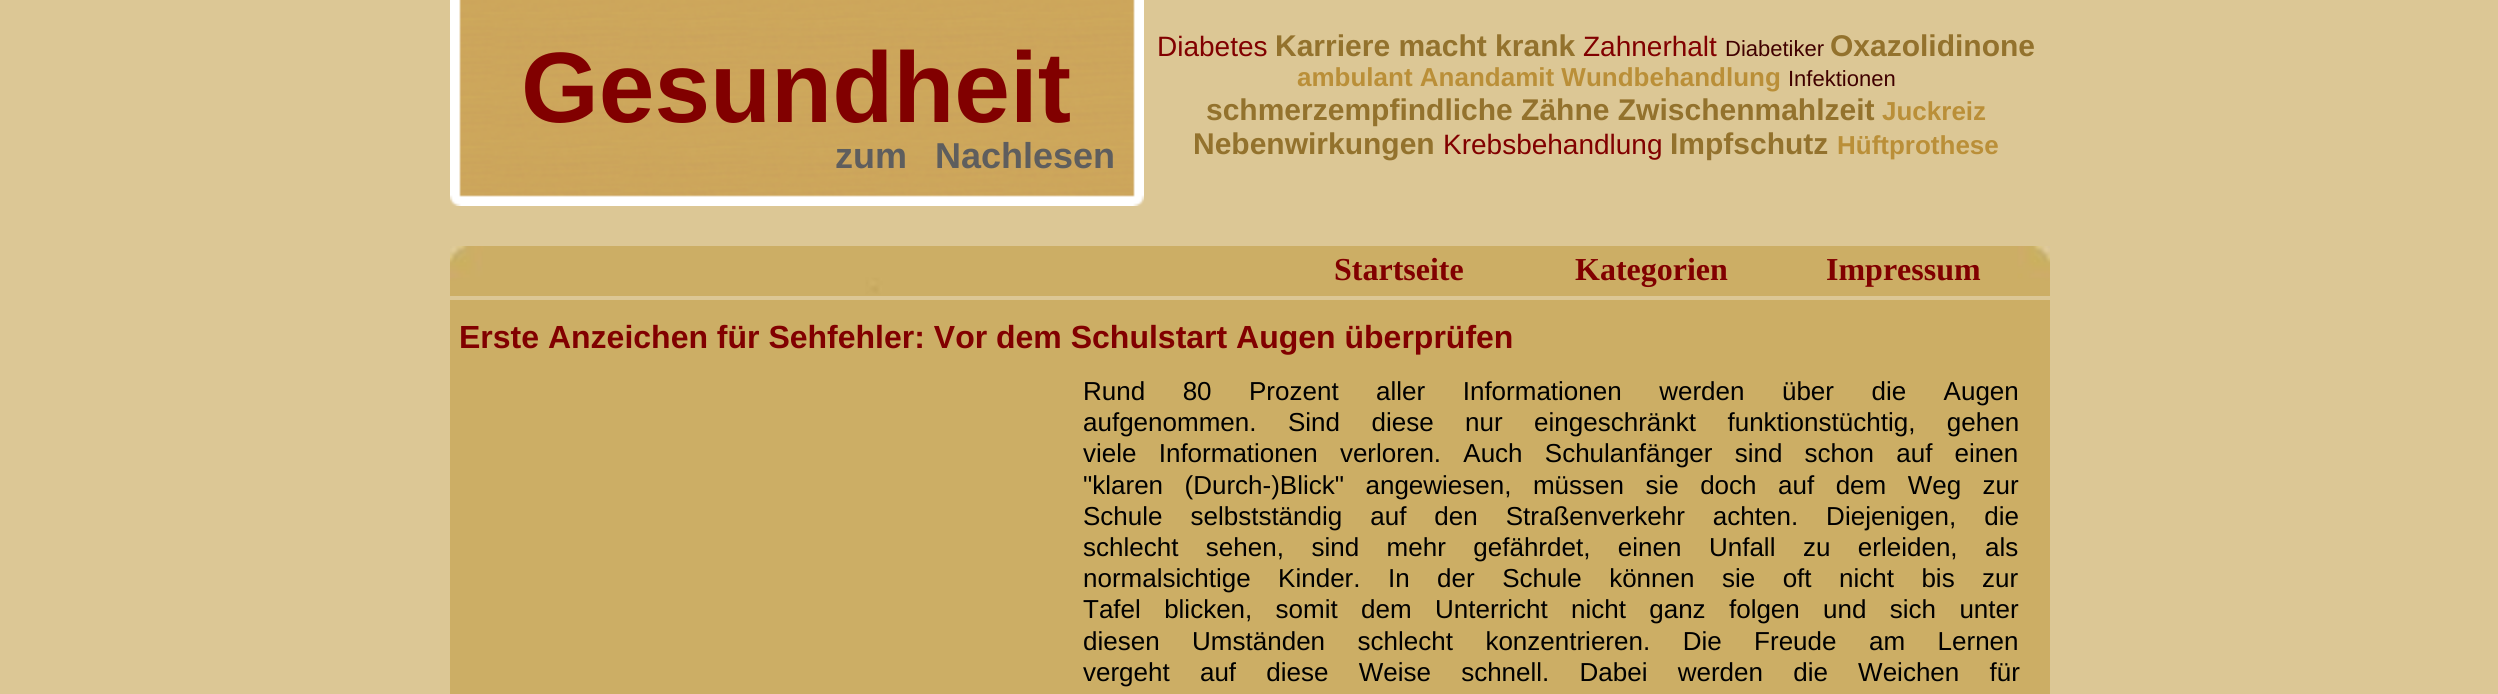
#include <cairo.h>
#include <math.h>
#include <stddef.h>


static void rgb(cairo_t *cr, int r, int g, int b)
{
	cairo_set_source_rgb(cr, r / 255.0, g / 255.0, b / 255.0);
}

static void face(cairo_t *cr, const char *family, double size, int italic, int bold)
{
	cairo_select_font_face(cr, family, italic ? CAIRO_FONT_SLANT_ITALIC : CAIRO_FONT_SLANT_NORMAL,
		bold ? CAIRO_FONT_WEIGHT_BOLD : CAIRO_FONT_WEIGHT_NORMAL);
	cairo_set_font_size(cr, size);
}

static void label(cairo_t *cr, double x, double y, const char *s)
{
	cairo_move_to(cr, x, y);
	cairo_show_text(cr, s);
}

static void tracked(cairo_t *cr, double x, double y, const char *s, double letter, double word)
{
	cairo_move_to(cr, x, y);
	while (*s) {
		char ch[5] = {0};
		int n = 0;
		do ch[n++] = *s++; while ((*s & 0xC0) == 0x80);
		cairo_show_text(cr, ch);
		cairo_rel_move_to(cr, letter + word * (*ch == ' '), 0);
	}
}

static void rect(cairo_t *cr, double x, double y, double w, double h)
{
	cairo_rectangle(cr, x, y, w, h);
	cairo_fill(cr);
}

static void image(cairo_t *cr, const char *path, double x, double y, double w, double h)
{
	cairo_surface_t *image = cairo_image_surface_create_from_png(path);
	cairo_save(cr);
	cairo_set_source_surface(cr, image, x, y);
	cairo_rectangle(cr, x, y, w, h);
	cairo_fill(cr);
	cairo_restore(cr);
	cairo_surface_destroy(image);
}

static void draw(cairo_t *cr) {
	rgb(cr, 220, 199, 149);
	cairo_paint(cr);
	image(cr, "image0.png", 450, 0, 694, 206);
	face(cr, "Liberation Sans", 100, 0, 1);
	rgb(cr, 129, 0, 0);
	label(cr, 521, 122, "Gesundheit");
	face(cr, "Liberation Sans", 36, 0, 1);
	rgb(cr, 94, 94, 94);
	tracked(cr, 835, 168, "zum Nachlesen", 0, 18);
	face(cr, "Liberation Sans", 28, 0, 0);
	rgb(cr, 129, 0, 0);
	label(cr, 1157, 56, "Diabetes");
	face(cr, "Liberation Sans", 30, 0, 1);
	rgb(cr, 147, 114, 45);
	label(cr, 1275, 56, "Karriere macht krank");
	face(cr, "Liberation Sans", 28, 0, 0);
	rgb(cr, 129, 0, 0);
	label(cr, 1583, 56, "Zahnerhalt");
	face(cr, "Liberation Sans", 22, 0, 0);
	rgb(cr, 64, 0, 0);
	label(cr, 1725, 56, "Diabetiker");
	face(cr, "Liberation Sans", 30, 0, 1);
	rgb(cr, 147, 114, 45);
	label(cr, 1830, 56, "Oxazolidinone");
	face(cr, "Liberation Sans", 26, 0, 1);
	rgb(cr, 186, 143, 56);
	label(cr, 1297, 86, "ambulant Anandamit Wundbehandlung");
	face(cr, "Liberation Sans", 22, 0, 0);
	rgb(cr, 64, 0, 0);
	label(cr, 1788, 86, "Infektionen");
	face(cr, "Liberation Sans", 30, 0, 1);
	rgb(cr, 147, 114, 45);
	label(cr, 1206, 120, "schmerzempfindliche Zähne Zwischenmahlzeit");
	face(cr, "Liberation Sans", 26, 0, 1);
	rgb(cr, 186, 143, 56);
	label(cr, 1882, 120, "Juckreiz");
	face(cr, "Liberation Sans", 30, 0, 1);
	rgb(cr, 147, 114, 45);
	label(cr, 1193, 154, "Nebenwirkungen");
	face(cr, "Liberation Sans", 28, 0, 0);
	rgb(cr, 129, 0, 0);
	label(cr, 1443, 154, "Krebsbehandlung");
	face(cr, "Liberation Sans", 30, 0, 1);
	rgb(cr, 147, 114, 45);
	label(cr, 1670, 154, "Impfschutz");
	face(cr, "Liberation Sans", 26, 0, 1);
	rgb(cr, 186, 143, 56);
	label(cr, 1837, 154, "Hüftprothese");
	image(cr, "image1.png", 450, 246, 1600, 50);
	face(cr, "Liberation Serif", 32, 0, 1);
	rgb(cr, 129, 0, 0);
	label(cr, 1334, 280, "Startseite");
	label(cr, 1575, 280, "Kategorien");
	label(cr, 1826, 280, "Impressum");
	rgb(cr, 204, 174, 101);
	rect(cr, 450, 300, 1600, 394);
	face(cr, "Liberation Sans", 32, 0, 1);
	rgb(cr, 129, 0, 0);
	label(cr, 459, 348, "Erste Anzeichen für Sehfehler: Vor dem Schulstart Augen überprüfen");
	face(cr, "Liberation Sans", 26, 0, 0);
	rgb(cr, 0, 0, 0);
	tracked(cr, 1083, 400, "Rund 80 Prozent aller Informationen werden über die Augen", 0, 30.25);
	tracked(cr, 1083, 431, "aufgenommen. Sind diese nur eingeschränkt funktionstüchtig, gehen", 0, 24.25);
	tracked(cr, 1083, 462, "viele Informationen verloren. Auch Schulanfänger sind schon auf einen", 0, 15);
	tracked(cr, 1083, 494, "\"klaren (Durch-)Blick\" angewiesen, müssen sie doch auf dem Weg zur", 0, 14.25);
	tracked(cr, 1083, 525, "Schule selbstständig auf den Straßenverkehr achten. Diejenigen, die", 0, 20.75);
	tracked(cr, 1083, 556, "schlecht sehen, sind mehr gefährdet, einen Unfall zu erleiden, als", 0, 20.25);
	tracked(cr, 1083, 587, "normalsichtige Kinder. In der Schule können sie oft nicht bis zur", 0, 20.25);
	tracked(cr, 1083, 618, "Tafel blicken, somit dem Unterricht nicht ganz folgen und sich unter", 0, 16.1);
	tracked(cr, 1083, 650, "diesen Umständen schlecht konzentrieren. Die Freude am Lernen", 0, 25.25);
	tracked(cr, 1083, 681, "vergeht auf diese Weise schnell. Dabei werden die Weichen für", 0, 23);
}

int main(void) {
	cairo_surface_t *surface = cairo_image_surface_create(CAIRO_FORMAT_RGB24, 2498, 694);
	cairo_t *cr = cairo_create(surface);
	cairo_font_options_t *options = cairo_font_options_create();
	cairo_font_options_set_hint_metrics(options, CAIRO_HINT_METRICS_OFF);
	cairo_font_options_set_hint_style(options, CAIRO_HINT_STYLE_NONE);
	cairo_set_font_options(cr, options);
	cairo_set_miter_limit(cr, 4);
	draw(cr);
	cairo_surface_write_to_png(surface, "render.png");
	cairo_font_options_destroy(options);
	cairo_destroy(cr);
	cairo_surface_destroy(surface);
	return 0;
}
